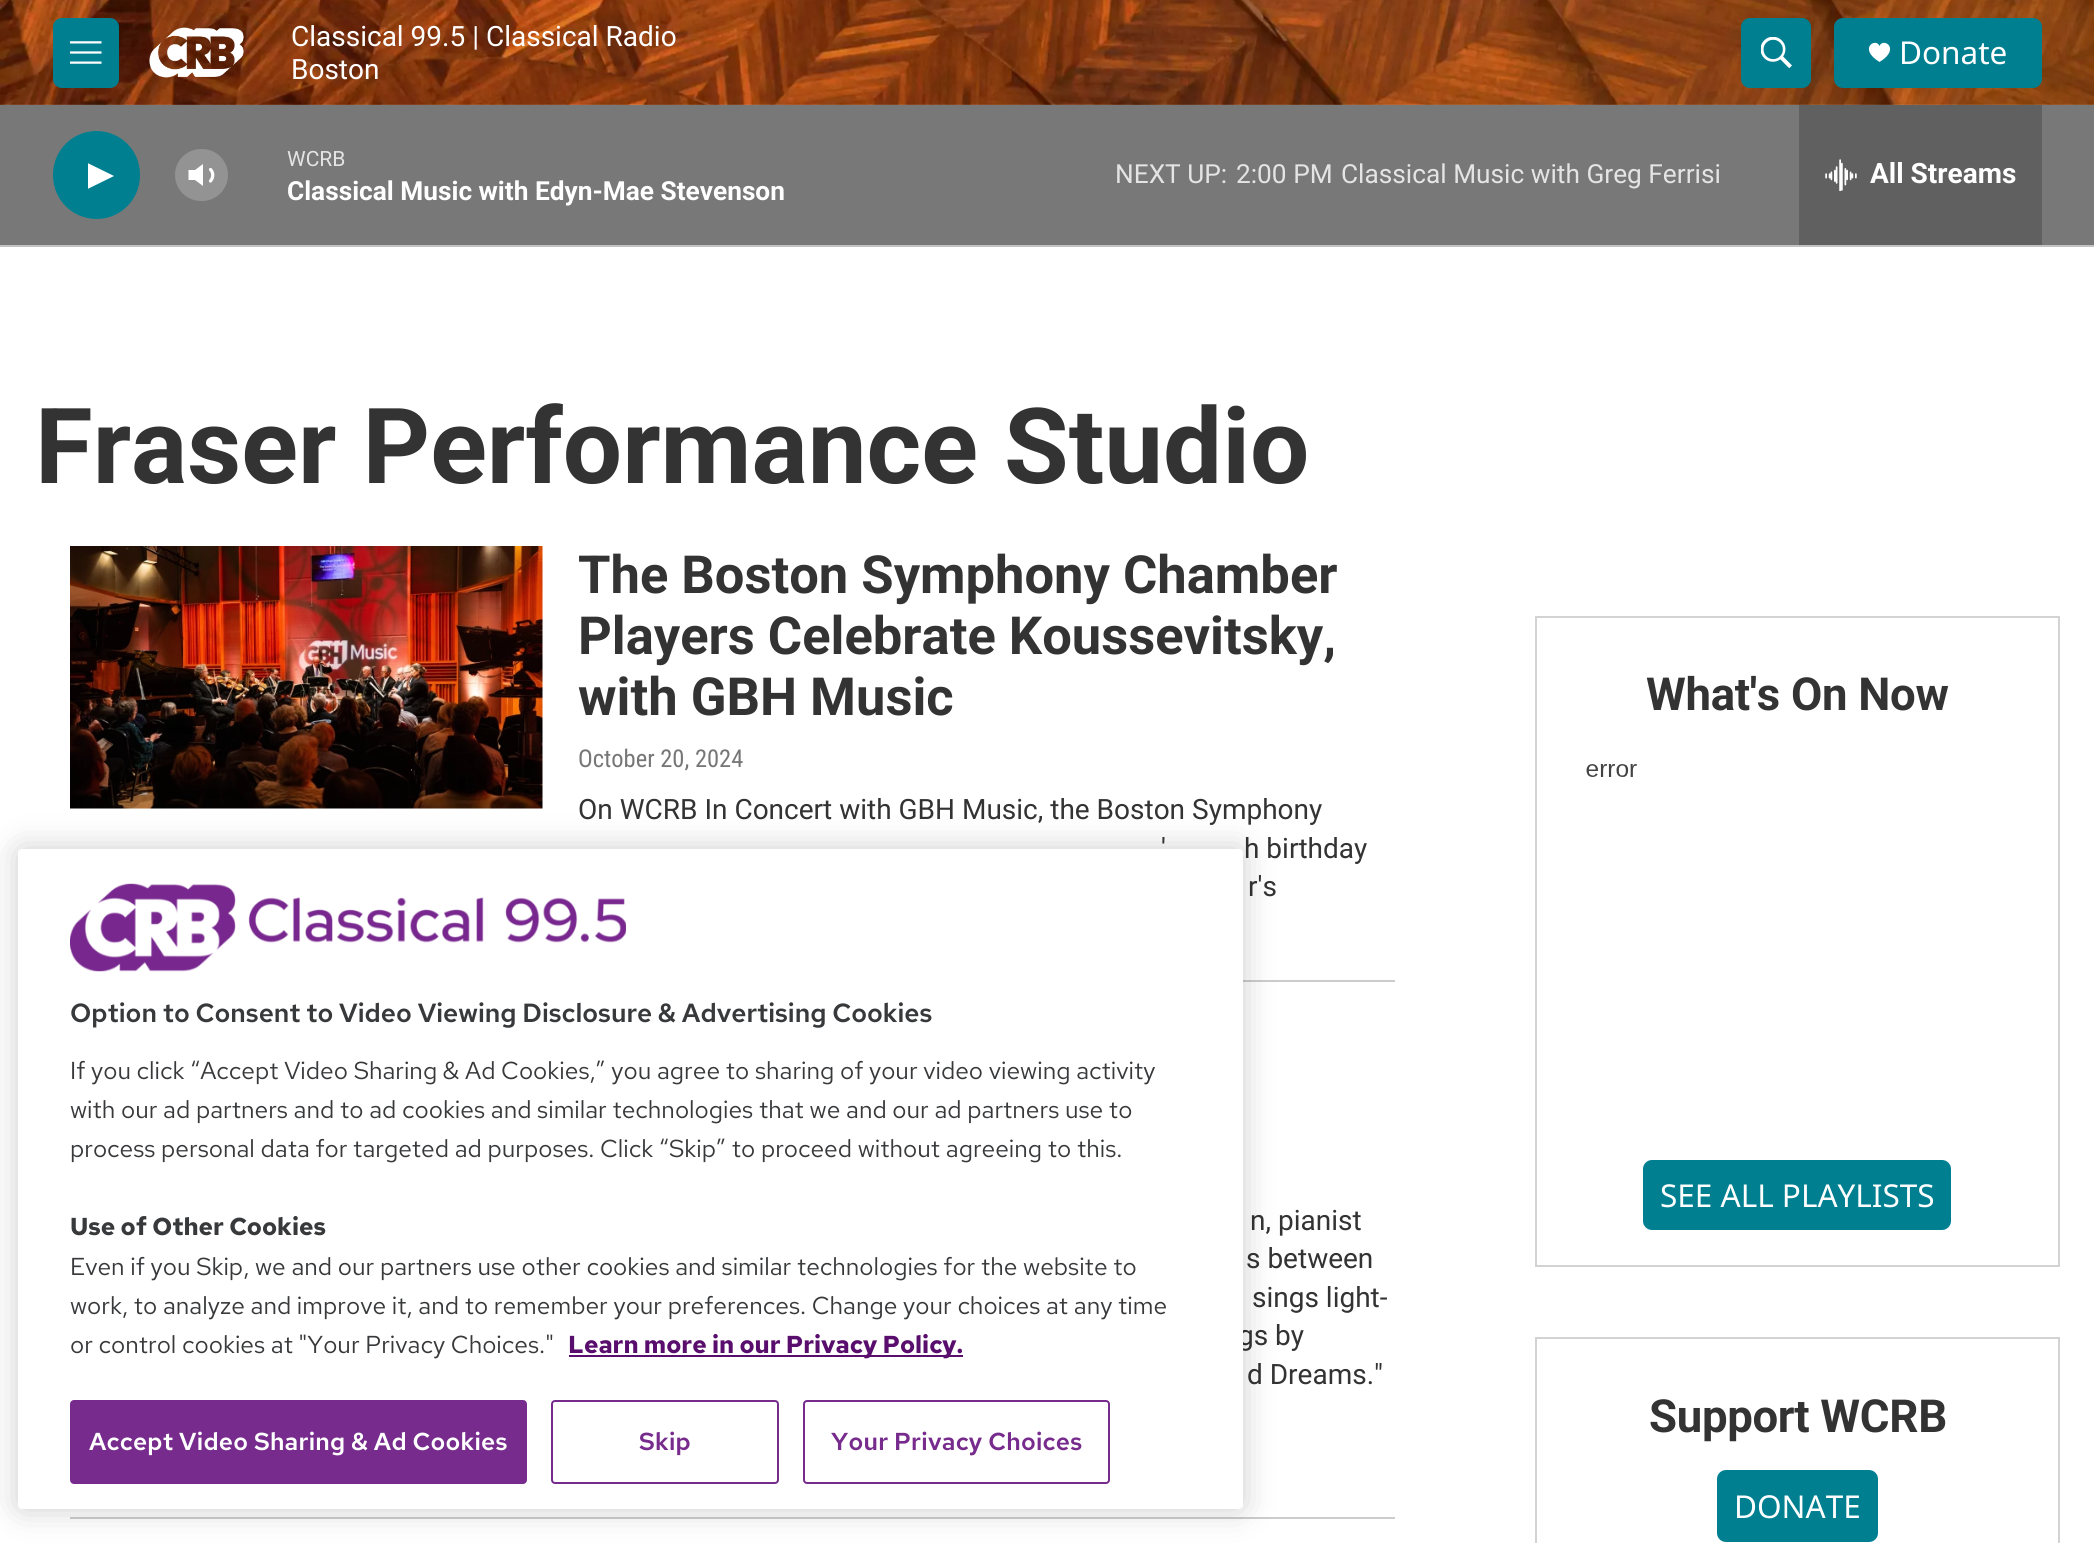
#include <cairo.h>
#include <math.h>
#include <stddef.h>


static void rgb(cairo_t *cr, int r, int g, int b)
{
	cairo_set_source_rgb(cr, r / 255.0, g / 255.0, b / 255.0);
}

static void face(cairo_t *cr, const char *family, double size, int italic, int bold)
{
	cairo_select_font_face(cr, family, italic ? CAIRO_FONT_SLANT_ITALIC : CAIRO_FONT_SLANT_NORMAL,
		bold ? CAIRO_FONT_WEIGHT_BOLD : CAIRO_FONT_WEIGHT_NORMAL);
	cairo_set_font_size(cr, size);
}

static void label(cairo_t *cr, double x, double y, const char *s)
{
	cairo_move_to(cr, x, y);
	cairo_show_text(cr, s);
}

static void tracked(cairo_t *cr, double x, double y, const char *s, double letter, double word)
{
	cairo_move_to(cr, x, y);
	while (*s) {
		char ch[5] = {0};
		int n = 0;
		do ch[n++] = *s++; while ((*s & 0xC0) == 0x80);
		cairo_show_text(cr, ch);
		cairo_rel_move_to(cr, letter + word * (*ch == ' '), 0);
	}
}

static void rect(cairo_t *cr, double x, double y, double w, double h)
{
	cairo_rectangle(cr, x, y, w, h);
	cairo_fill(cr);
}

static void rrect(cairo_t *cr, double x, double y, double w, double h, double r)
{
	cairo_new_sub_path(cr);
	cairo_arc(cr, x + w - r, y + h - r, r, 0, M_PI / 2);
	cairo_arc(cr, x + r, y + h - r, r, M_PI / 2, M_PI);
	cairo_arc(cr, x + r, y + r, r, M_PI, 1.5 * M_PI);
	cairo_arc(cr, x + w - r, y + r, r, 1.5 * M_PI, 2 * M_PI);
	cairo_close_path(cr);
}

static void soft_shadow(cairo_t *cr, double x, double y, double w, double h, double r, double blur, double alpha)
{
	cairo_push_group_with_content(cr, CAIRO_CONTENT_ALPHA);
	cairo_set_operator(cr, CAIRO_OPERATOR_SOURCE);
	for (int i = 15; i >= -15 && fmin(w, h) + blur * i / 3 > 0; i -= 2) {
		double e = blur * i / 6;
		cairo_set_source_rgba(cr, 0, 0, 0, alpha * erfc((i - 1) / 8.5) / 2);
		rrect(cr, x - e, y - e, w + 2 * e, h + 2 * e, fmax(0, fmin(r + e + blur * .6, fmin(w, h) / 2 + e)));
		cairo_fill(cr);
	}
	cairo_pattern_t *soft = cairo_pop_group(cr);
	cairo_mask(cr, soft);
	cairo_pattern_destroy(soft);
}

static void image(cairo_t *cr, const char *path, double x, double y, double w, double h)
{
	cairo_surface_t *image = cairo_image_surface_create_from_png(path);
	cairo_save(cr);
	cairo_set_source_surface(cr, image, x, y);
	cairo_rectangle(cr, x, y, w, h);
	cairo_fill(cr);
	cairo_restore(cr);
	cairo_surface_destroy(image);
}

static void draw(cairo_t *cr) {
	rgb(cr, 255, 255, 255);
	cairo_paint(cr);
	rgb(cr, 194, 194, 194);
	rect(cr, 0, 245, 2094, 2);
	image(cr, "image0.png", 0, 0, 2094, 105);
	rgb(cr, 0, 127, 145);
	rrect(cr, 53, 18, 66, 70, 9);
	cairo_fill(cr);
	image(cr, "image1.png", 70, 41, 32, 23);
	image(cr, "image2.png", 149, 27, 95, 51);
	face(cr, "Roboto", 28, 0, 0);
	rgb(cr, 255, 255, 255);
	label(cr, 291, 46, "Classical 99.5 | Classical Radio");
	label(cr, 291, 79, "Boston");
	rgb(cr, 0, 127, 145);
	rrect(cr, 1741, 18, 70, 70, 9);
	cairo_fill(cr);
	image(cr, "image3.png", 1761, 37, 31, 31);
	rrect(cr, 1834, 18, 208, 70, 9);
	cairo_fill(cr);
	rgb(cr, 255, 255, 255);
	cairo_new_path(cr);
	cairo_move_to(cr, 1879.5, 46);
	cairo_curve_to(cr, 1876, 37, 1857.5, 48.5, 1879.5, 62);
	cairo_curve_to(cr, 1901.5, 48.5, 1883, 37, 1879.5, 46);
	cairo_close_path(cr);
	cairo_fill(cr);
	face(cr, "Noto Sans", 31.5, 0, 0);
	label(cr, 1899, 64, "Donate");
	rgb(cr, 120, 120, 120);
	rect(cr, 0, 105, 2094, 140);
	rgb(cr, 0, 127, 145);
	rrect(cr, 53, 131, 87, 88, 43.5);
	cairo_fill(cr);
	cairo_save(cr);
	cairo_rectangle(cr, 88, 159, 26, 34);
	cairo_clip(cr);
	rgb(cr, 255, 255, 255);
	cairo_new_path(cr);
	cairo_move_to(cr, 87.5, 163);
	cairo_line_to(cr, 114, 176);
	cairo_line_to(cr, 87.5, 189);
	cairo_close_path(cr);
	cairo_fill(cr);
	cairo_restore(cr);
	rgb(cr, 255, 255, 255);
	cairo_new_path(cr);
	cairo_move_to(cr, 203, 164);
	cairo_line_to(cr, 195, 170);
	cairo_line_to(cr, 188.5, 170);
	cairo_line_to(cr, 188.5, 180);
	cairo_line_to(cr, 195, 180);
	cairo_line_to(cr, 203, 186);
	cairo_close_path(cr);
	cairo_fill(cr);
	cairo_new_path(cr);
	cairo_move_to(cr, 210.5, 169.5);
	cairo_curve_to(cr, 213.5, 172.5, 213.5, 177.5, 210.5, 181);
	cairo_set_line_width(cr, 3.2);
	cairo_set_line_cap(cr, CAIRO_LINE_CAP_ROUND);
	cairo_set_line_join(cr, CAIRO_LINE_JOIN_ROUND);
	cairo_stroke(cr);
	cairo_set_source_rgba(cr, 1, 1, 1, 0.2);
	rrect(cr, 175, 149, 53, 52, 26);
	cairo_fill(cr);
	face(cr, "Roboto", 21, 0, 0);
	rgb(cr, 228, 228, 228);
	label(cr, 287, 166, "WCRB");
	face(cr, "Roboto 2", 26.25, 0, 1);
	rgb(cr, 255, 255, 255);
	label(cr, 287, 200, "Classical Music with Edyn-Mae Stevenson");
	face(cr, "Roboto", 26.25, 0, 0);
	rgb(cr, 228, 228, 228);
	label(cr, 1115, 183, "NEXT UP:");
	label(cr, 1236, 183, "2:00 PM");
	label(cr, 1341, 183, "Classical Music with Greg Ferrisi");
	rgb(cr, 96, 96, 96);
	rect(cr, 1799, 105, 243, 140);
	image(cr, "image4.png", 1825, 159, 32, 32);
	face(cr, "Roboto 2", 28, 0, 1);
	rgb(cr, 255, 255, 255);
	label(cr, 1870, 183, "All Streams");
	face(cr, "Roboto", 105, 0, 1);
	rgb(cr, 51, 51, 51);
	label(cr, 35, 483, "Fraser Performance Studio");
	rgb(cr, 204, 204, 204);
	rect(cr, 1243, 980, 152, 2);
	image(cr, "image5.png", 70, 546, 473, 263);
	face(cr, "Roboto", 52.5, 0, 1);
	rgb(cr, 51, 51, 51);
	label(cr, 578, 593, "The Boston Symphony Chamber");
	label(cr, 578, 654, "Players Celebrate Koussevitsky,");
	label(cr, 578, 715, "with GBH Music");
	face(cr, "Roboto Condensed", 24.5, 0, 0);
	rgb(cr, 118, 118, 118);
	label(cr, 578, 767, "October 20, 2024");
	face(cr, "Roboto", 28, 0, 0);
	rgb(cr, 51, 51, 51);
	label(cr, 578, 819, "On WCRB In Concert with GBH Music, the Boston Symphony");
	label(cr, 1161, 858, "'");
	label(cr, 1244, 858, "h birthday");
	label(cr, 1248, 896, "r's");
	rgb(cr, 204, 204, 204);
	rect(cr, 70, 1517, 1325, 2);
	rgb(cr, 51, 51, 51);
	label(cr, 1250, 1230, "n, pianist");
	label(cr, 1246, 1268, "s between");
	label(cr, 1252, 1307, "sings light-");
	label(cr, 1238, 1345, "gs by");
	label(cr, 1247, 1384, "d Dreams.\"");
	cairo_rectangle(cr, 1536, 617, 523, 649);
	rgb(cr, 211, 211, 211);
	cairo_set_line_width(cr, 2);
	cairo_set_line_cap(cr, CAIRO_LINE_CAP_BUTT);
	cairo_set_line_join(cr, CAIRO_LINE_JOIN_MITER);
	cairo_stroke(cr);
	face(cr, "Roboto", 45.5, 0, 1);
	rgb(cr, 51, 51, 51);
	tracked(cr, 1646, 710, "What's On Now", -0.3, 0);
	image(cr, "image6.png", 1586, 764, 51, 13);
	rgb(cr, 0, 127, 145);
	rrect(cr, 1643, 1160, 308, 70, 9);
	cairo_fill(cr);
	face(cr, "Noto Sans", 31.5, 0, 0);
	rgb(cr, 255, 255, 255);
	label(cr, 1660, 1207, "SEE ALL PLAYLISTS");
	cairo_rectangle(cr, 1536, 1338, 523, 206);
	rgb(cr, 211, 211, 211);
	cairo_stroke(cr);
	face(cr, "Roboto", 45.5, 0, 1);
	rgb(cr, 51, 51, 51);
	tracked(cr, 1649, 1432, "Support WCRB", -0.3, 0);
	rgb(cr, 0, 127, 145);
	rrect(cr, 1717, 1470, 161, 72, 9);
	cairo_fill(cr);
	face(cr, "Noto Sans", 31.5, 0, 0);
	rgb(cr, 255, 255, 255);
	label(cr, 1734, 1518, "DONATE");
	rgb(cr, 0, 0, 0);
	soft_shadow(cr, 18, 849, 1225, 660, 4, 16, 0.2);
	rgb(cr, 255, 255, 255);
	rrect(cr, 18, 849, 1225, 660, 4);
	cairo_fill(cr);
	image(cr, "image7.png", 70, 883, 556, 89);
	face(cr, "Red Hat Text SemiBold", 26.25, 0, 0);
	rgb(cr, 56, 57, 59);
	label(cr, 70, 1022, "Option to Consent to Video Viewing Disclosure & Advertising Cookies");
	face(cr, "Red Hat Text", 24.5, 0, 0);
	label(cr, 70, 1079, "If you click “Accept Video Sharing & Ad Cookies,” you agree to sharing of your video viewing activity");
	label(cr, 70, 1118, "with our ad partners and to ad cookies and similar technologies that we and our ad partners use to");
	label(cr, 70, 1157, "process personal data for targeted ad purposes. Click “Skip” to proceed without agreeing to this.");
	face(cr, "Red Hat Text", 24.5, 0, 1);
	label(cr, 70, 1235, "Use of Other Cookies");
	face(cr, "Red Hat Text", 24.5, 0, 0);
	label(cr, 70, 1275, "Even if you Skip, we and our partners use other cookies and similar technologies for the website to");
	label(cr, 70, 1314, "work, to analyze and improve it, and to remember your preferences. Change your choices at any time");
	label(cr, 70, 1353, "or control cookies at \"Your Privacy Choices.\"");
	rgb(cr, 89, 14, 110);
	rect(cr, 569, 1355, 394, 2);
	face(cr, "Red Hat Text", 24.5, 0, 1);
	label(cr, 568, 1353, "Learn more in our Privacy Policy.");
	rgb(cr, 119, 43, 141);
	rrect(cr, 71, 1401, 455, 82, 3);
	cairo_fill_preserve(cr);
	cairo_stroke(cr);
	face(cr, "Red Hat Text SemiBold", 24.5, 0, 0);
	rgb(cr, 255, 255, 255);
	tracked(cr, 89, 1450, "Accept Video Sharing & Ad Cookies", 0.25, 0);
	rrect(cr, 552, 1401, 226, 82, 3);
	rgb(cr, 119, 43, 141);
	cairo_stroke(cr);
	tracked(cr, 639, 1450, "Skip", 0.25, 0);
	rrect(cr, 804, 1401, 305, 82, 3);
	cairo_stroke(cr);
	tracked(cr, 831, 1450, "Your Privacy Choices", 0.25, 0);
}

int main(void) {
	cairo_surface_t *surface = cairo_image_surface_create(CAIRO_FORMAT_RGB24, 2094, 1543);
	cairo_t *cr = cairo_create(surface);
	cairo_font_options_t *options = cairo_font_options_create();
	cairo_font_options_set_hint_metrics(options, CAIRO_HINT_METRICS_OFF);
	cairo_font_options_set_hint_style(options, CAIRO_HINT_STYLE_NONE);
	cairo_set_font_options(cr, options);
	cairo_set_miter_limit(cr, 4);
	draw(cr);
	cairo_surface_write_to_png(surface, "render.png");
	cairo_font_options_destroy(options);
	cairo_destroy(cr);
	cairo_surface_destroy(surface);
	return 0;
}
